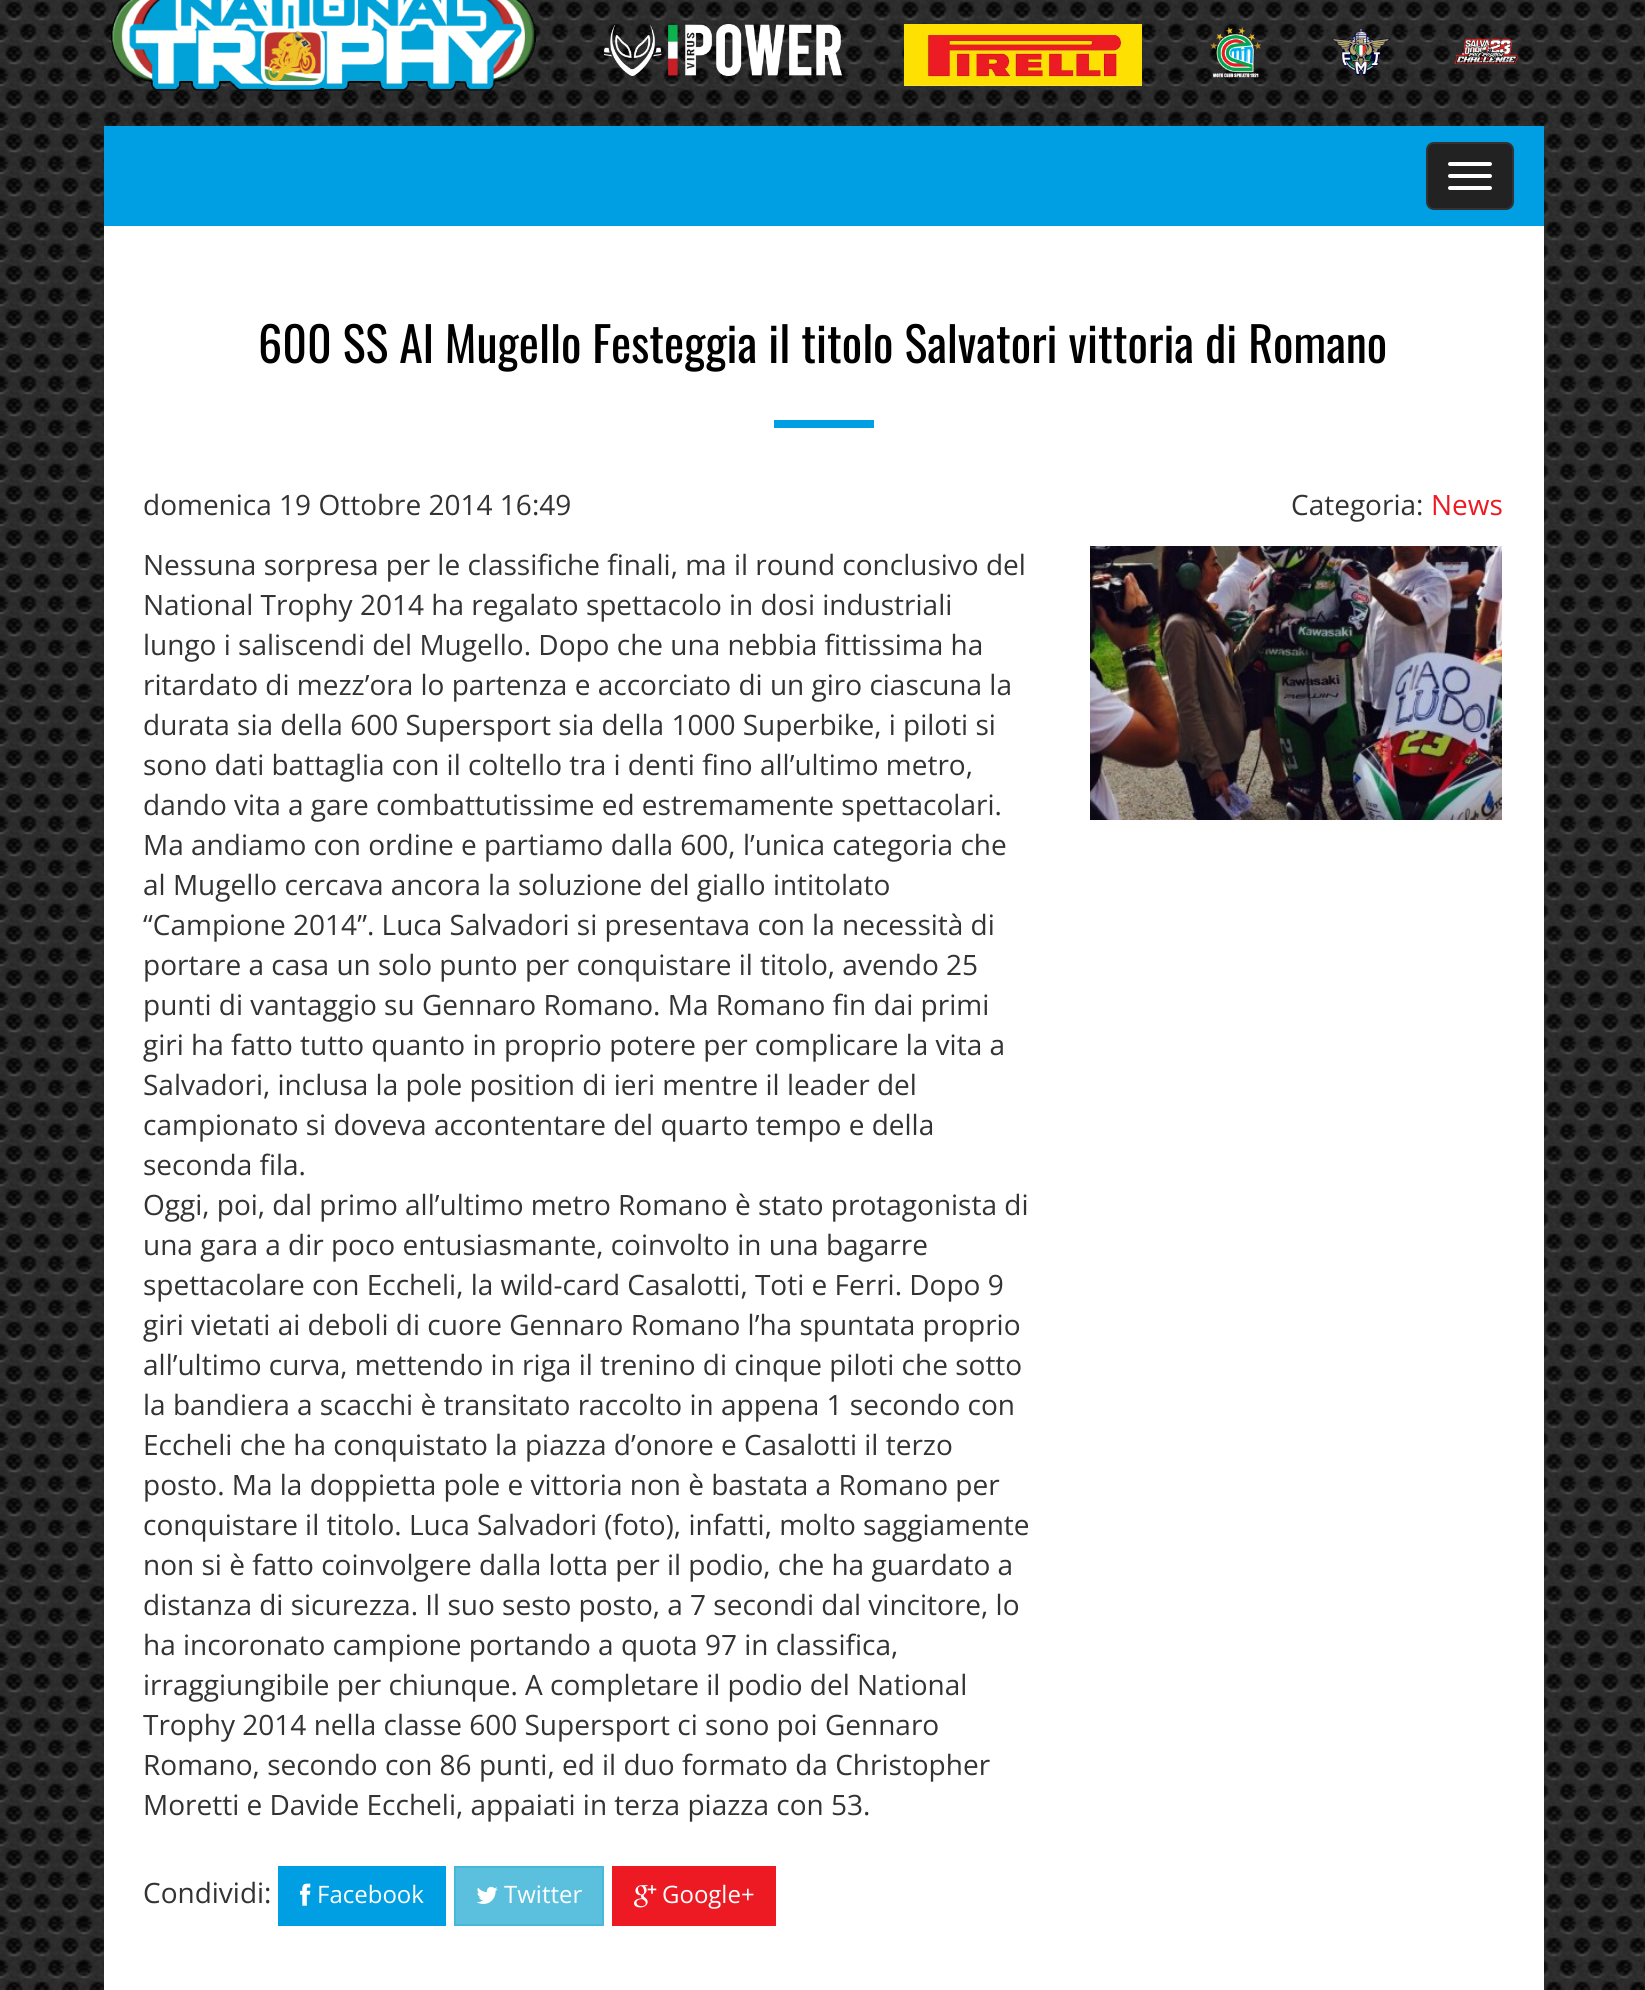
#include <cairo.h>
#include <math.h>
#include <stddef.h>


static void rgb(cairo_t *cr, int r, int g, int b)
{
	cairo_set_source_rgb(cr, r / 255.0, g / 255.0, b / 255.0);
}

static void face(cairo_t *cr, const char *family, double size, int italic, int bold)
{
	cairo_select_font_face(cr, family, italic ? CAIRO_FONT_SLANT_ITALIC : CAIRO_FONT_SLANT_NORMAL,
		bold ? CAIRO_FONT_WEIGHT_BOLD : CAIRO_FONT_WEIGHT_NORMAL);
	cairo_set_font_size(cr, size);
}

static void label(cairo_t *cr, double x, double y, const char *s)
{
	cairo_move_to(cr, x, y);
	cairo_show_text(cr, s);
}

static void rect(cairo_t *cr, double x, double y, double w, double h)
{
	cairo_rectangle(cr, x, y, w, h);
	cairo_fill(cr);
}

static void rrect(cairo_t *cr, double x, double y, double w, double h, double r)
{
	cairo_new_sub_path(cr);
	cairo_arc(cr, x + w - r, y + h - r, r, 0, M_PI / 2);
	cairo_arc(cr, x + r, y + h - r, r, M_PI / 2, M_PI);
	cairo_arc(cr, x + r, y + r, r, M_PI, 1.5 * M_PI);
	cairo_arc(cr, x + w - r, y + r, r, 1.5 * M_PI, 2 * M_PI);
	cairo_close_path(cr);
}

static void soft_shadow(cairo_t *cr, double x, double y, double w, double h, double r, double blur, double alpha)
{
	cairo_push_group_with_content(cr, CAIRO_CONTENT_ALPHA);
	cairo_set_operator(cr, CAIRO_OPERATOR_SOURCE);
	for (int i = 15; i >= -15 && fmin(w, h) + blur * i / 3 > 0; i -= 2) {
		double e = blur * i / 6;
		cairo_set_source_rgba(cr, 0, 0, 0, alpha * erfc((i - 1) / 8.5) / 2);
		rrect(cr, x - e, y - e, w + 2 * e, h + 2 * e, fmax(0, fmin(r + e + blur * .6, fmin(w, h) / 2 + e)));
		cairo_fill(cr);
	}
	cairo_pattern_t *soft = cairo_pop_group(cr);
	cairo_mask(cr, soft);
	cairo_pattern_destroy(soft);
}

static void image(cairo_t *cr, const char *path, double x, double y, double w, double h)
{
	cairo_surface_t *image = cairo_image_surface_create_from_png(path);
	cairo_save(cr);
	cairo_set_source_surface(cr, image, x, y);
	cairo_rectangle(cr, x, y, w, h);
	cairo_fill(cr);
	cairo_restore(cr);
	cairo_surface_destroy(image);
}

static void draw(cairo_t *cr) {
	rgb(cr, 255, 255, 255);
	cairo_paint(cr);
	image(cr, "image0.png", 0, 0, 1645, 1990);
	image(cr, "image1.png", 111, 0, 425, 92);
	image(cr, "image2.png", 604, 24, 238, 52);
	image(cr, "image3.png", 904, 24, 238, 62);
	image(cr, "image4.png", 1210, 27, 51, 51);
	image(cr, "image5.png", 1332, 28, 58, 48);
	image(cr, "image6.png", 1454, 38, 64, 27);
	rgb(cr, 50, 50, 50);
	soft_shadow(cr, 104, 126, 1440, 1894, 0, 10, 0.25);
	rgb(cr, 0, 159, 227);
	rect(cr, 104, 126, 1440, 100);
	rgb(cr, 34, 34, 34);
	rrect(cr, 1427, 143, 86, 66, 7);
	cairo_fill_preserve(cr);
	rgb(cr, 51, 51, 51);
	cairo_stroke(cr);
	rgb(cr, 255, 255, 255);
	rrect(cr, 1448, 162, 44, 4, 2);
	cairo_fill(cr);
	rrect(cr, 1448, 174, 44, 4, 2);
	cairo_fill(cr);
	rrect(cr, 1448, 186, 44, 4, 2);
	cairo_fill(cr);
	rect(cr, 104, 226, 1440, 1764);
	face(cr, "Oswald", 48, 0, 0);
	rgb(cr, 0, 0, 0);
	label(cr, 258, 363, "600 SS Al Mugello Festeggia il titolo Salvatori vittoria di Romano");
	rgb(cr, 0, 159, 227);
	rect(cr, 774, 420, 100, 8);
	face(cr, "Open Sans", 28, 0, 0);
	rgb(cr, 51, 51, 51);
	label(cr, 143, 515, "domenica 19 Ottobre 2014 16:49");
	label(cr, 1291, 515, "Categoria:");
	rgb(cr, 237, 26, 35);
	label(cr, 1431, 515, "News");
	rgb(cr, 51, 51, 51);
	label(cr, 143, 575, "Nessuna sorpresa per le classifiche finali, ma il round conclusivo del");
	label(cr, 143, 615, "National Trophy 2014 ha regalato spettacolo in dosi industriali");
	label(cr, 143, 655, "lungo i saliscendi del Mugello. Dopo che una nebbia fittissima ha");
	label(cr, 143, 695, "ritardato di mezz’ora lo partenza e accorciato di un giro ciascuna la");
	label(cr, 143, 735, "durata sia della 600 Supersport sia della 1000 Superbike, i piloti si");
	label(cr, 143, 775, "sono dati battaglia con il coltello tra i denti fino all’ultimo metro,");
	label(cr, 143, 815, "dando vita a gare combattutissime ed estremamente spettacolari.");
	label(cr, 143, 855, "Ma andiamo con ordine e partiamo dalla 600, l’unica categoria che");
	label(cr, 143, 895, "al Mugello cercava ancora la soluzione del giallo intitolato");
	label(cr, 143, 935, "“Campione 2014”. Luca Salvadori si presentava con la necessità di");
	label(cr, 143, 975, "portare a casa un solo punto per conquistare il titolo, avendo 25");
	label(cr, 143, 1015, "punti di vantaggio su Gennaro Romano. Ma Romano fin dai primi");
	label(cr, 143, 1055, "giri ha fatto tutto quanto in proprio potere per complicare la vita a");
	label(cr, 143, 1095, "Salvadori, inclusa la pole position di ieri mentre il leader del");
	label(cr, 143, 1135, "campionato si doveva accontentare del quarto tempo e della");
	label(cr, 143, 1175, "seconda fila.");
	label(cr, 143, 1215, "Oggi, poi, dal primo all’ultimo metro Romano è stato protagonista di");
	label(cr, 143, 1255, "una gara a dir poco entusiasmante, coinvolto in una bagarre");
	label(cr, 143, 1295, "spettacolare con Eccheli, la wild-card Casalotti, Toti e Ferri. Dopo 9");
	label(cr, 143, 1335, "giri vietati ai deboli di cuore Gennaro Romano l’ha spuntata proprio");
	label(cr, 143, 1375, "all’ultimo curva, mettendo in riga il trenino di cinque piloti che sotto");
	label(cr, 143, 1415, "la bandiera a scacchi è transitato raccolto in appena 1 secondo con");
	label(cr, 143, 1455, "Eccheli che ha conquistato la piazza d’onore e Casalotti il terzo");
	label(cr, 143, 1495, "posto. Ma la doppietta pole e vittoria non è bastata a Romano per");
	label(cr, 143, 1535, "conquistare il titolo. Luca Salvadori (foto), infatti, molto saggiamente");
	label(cr, 143, 1575, "non si è fatto coinvolgere dalla lotta per il podio, che ha guardato a");
	label(cr, 143, 1615, "distanza di sicurezza. Il suo sesto posto, a 7 secondi dal vincitore, lo");
	label(cr, 143, 1655, "ha incoronato campione portando a quota 97 in classifica,");
	label(cr, 143, 1695, "irraggiungibile per chiunque. A completare il podio del National");
	label(cr, 143, 1735, "Trophy 2014 nella classe 600 Supersport ci sono poi Gennaro");
	label(cr, 143, 1775, "Romano, secondo con 86 punti, ed il duo formato da Christopher");
	label(cr, 143, 1815, "Moretti e Davide Eccheli, appaiati in terza piazza con 53.");
	image(cr, "image7.png", 1090, 546, 412, 274);
	label(cr, 143, 1903, "Condividi:");
	rgb(cr, 0, 159, 227);
	rect(cr, 278, 1866, 168, 60);
	image(cr, "image8.png", 300, 1883, 11, 23);
	face(cr, "Open Sans", 24, 0, 0);
	rgb(cr, 255, 255, 255);
	label(cr, 317, 1903, "Facebook");
	rgb(cr, 91, 192, 222);
	cairo_rectangle(cr, 455, 1867, 148, 58);
	cairo_fill_preserve(cr);
	rgb(cr, 70, 184, 218);
	cairo_stroke(cr);
	image(cr, "image9.png", 476, 1886, 22, 18);
	rgb(cr, 255, 255, 255);
	label(cr, 504, 1903, "Twitter");
	rgb(cr, 237, 26, 35);
	rect(cr, 612, 1866, 164, 60);
	image(cr, "image10.png", 634, 1885, 23, 23);
	rgb(cr, 255, 255, 255);
	label(cr, 662, 1903, "Google+");
}

int main(void) {
	cairo_surface_t *surface = cairo_image_surface_create(CAIRO_FORMAT_RGB24, 1645, 1990);
	cairo_t *cr = cairo_create(surface);
	cairo_font_options_t *options = cairo_font_options_create();
	cairo_font_options_set_hint_metrics(options, CAIRO_HINT_METRICS_OFF);
	cairo_font_options_set_hint_style(options, CAIRO_HINT_STYLE_NONE);
	cairo_set_font_options(cr, options);
	cairo_set_miter_limit(cr, 4);
	draw(cr);
	cairo_surface_write_to_png(surface, "render.png");
	cairo_font_options_destroy(options);
	cairo_destroy(cr);
	cairo_surface_destroy(surface);
	return 0;
}
